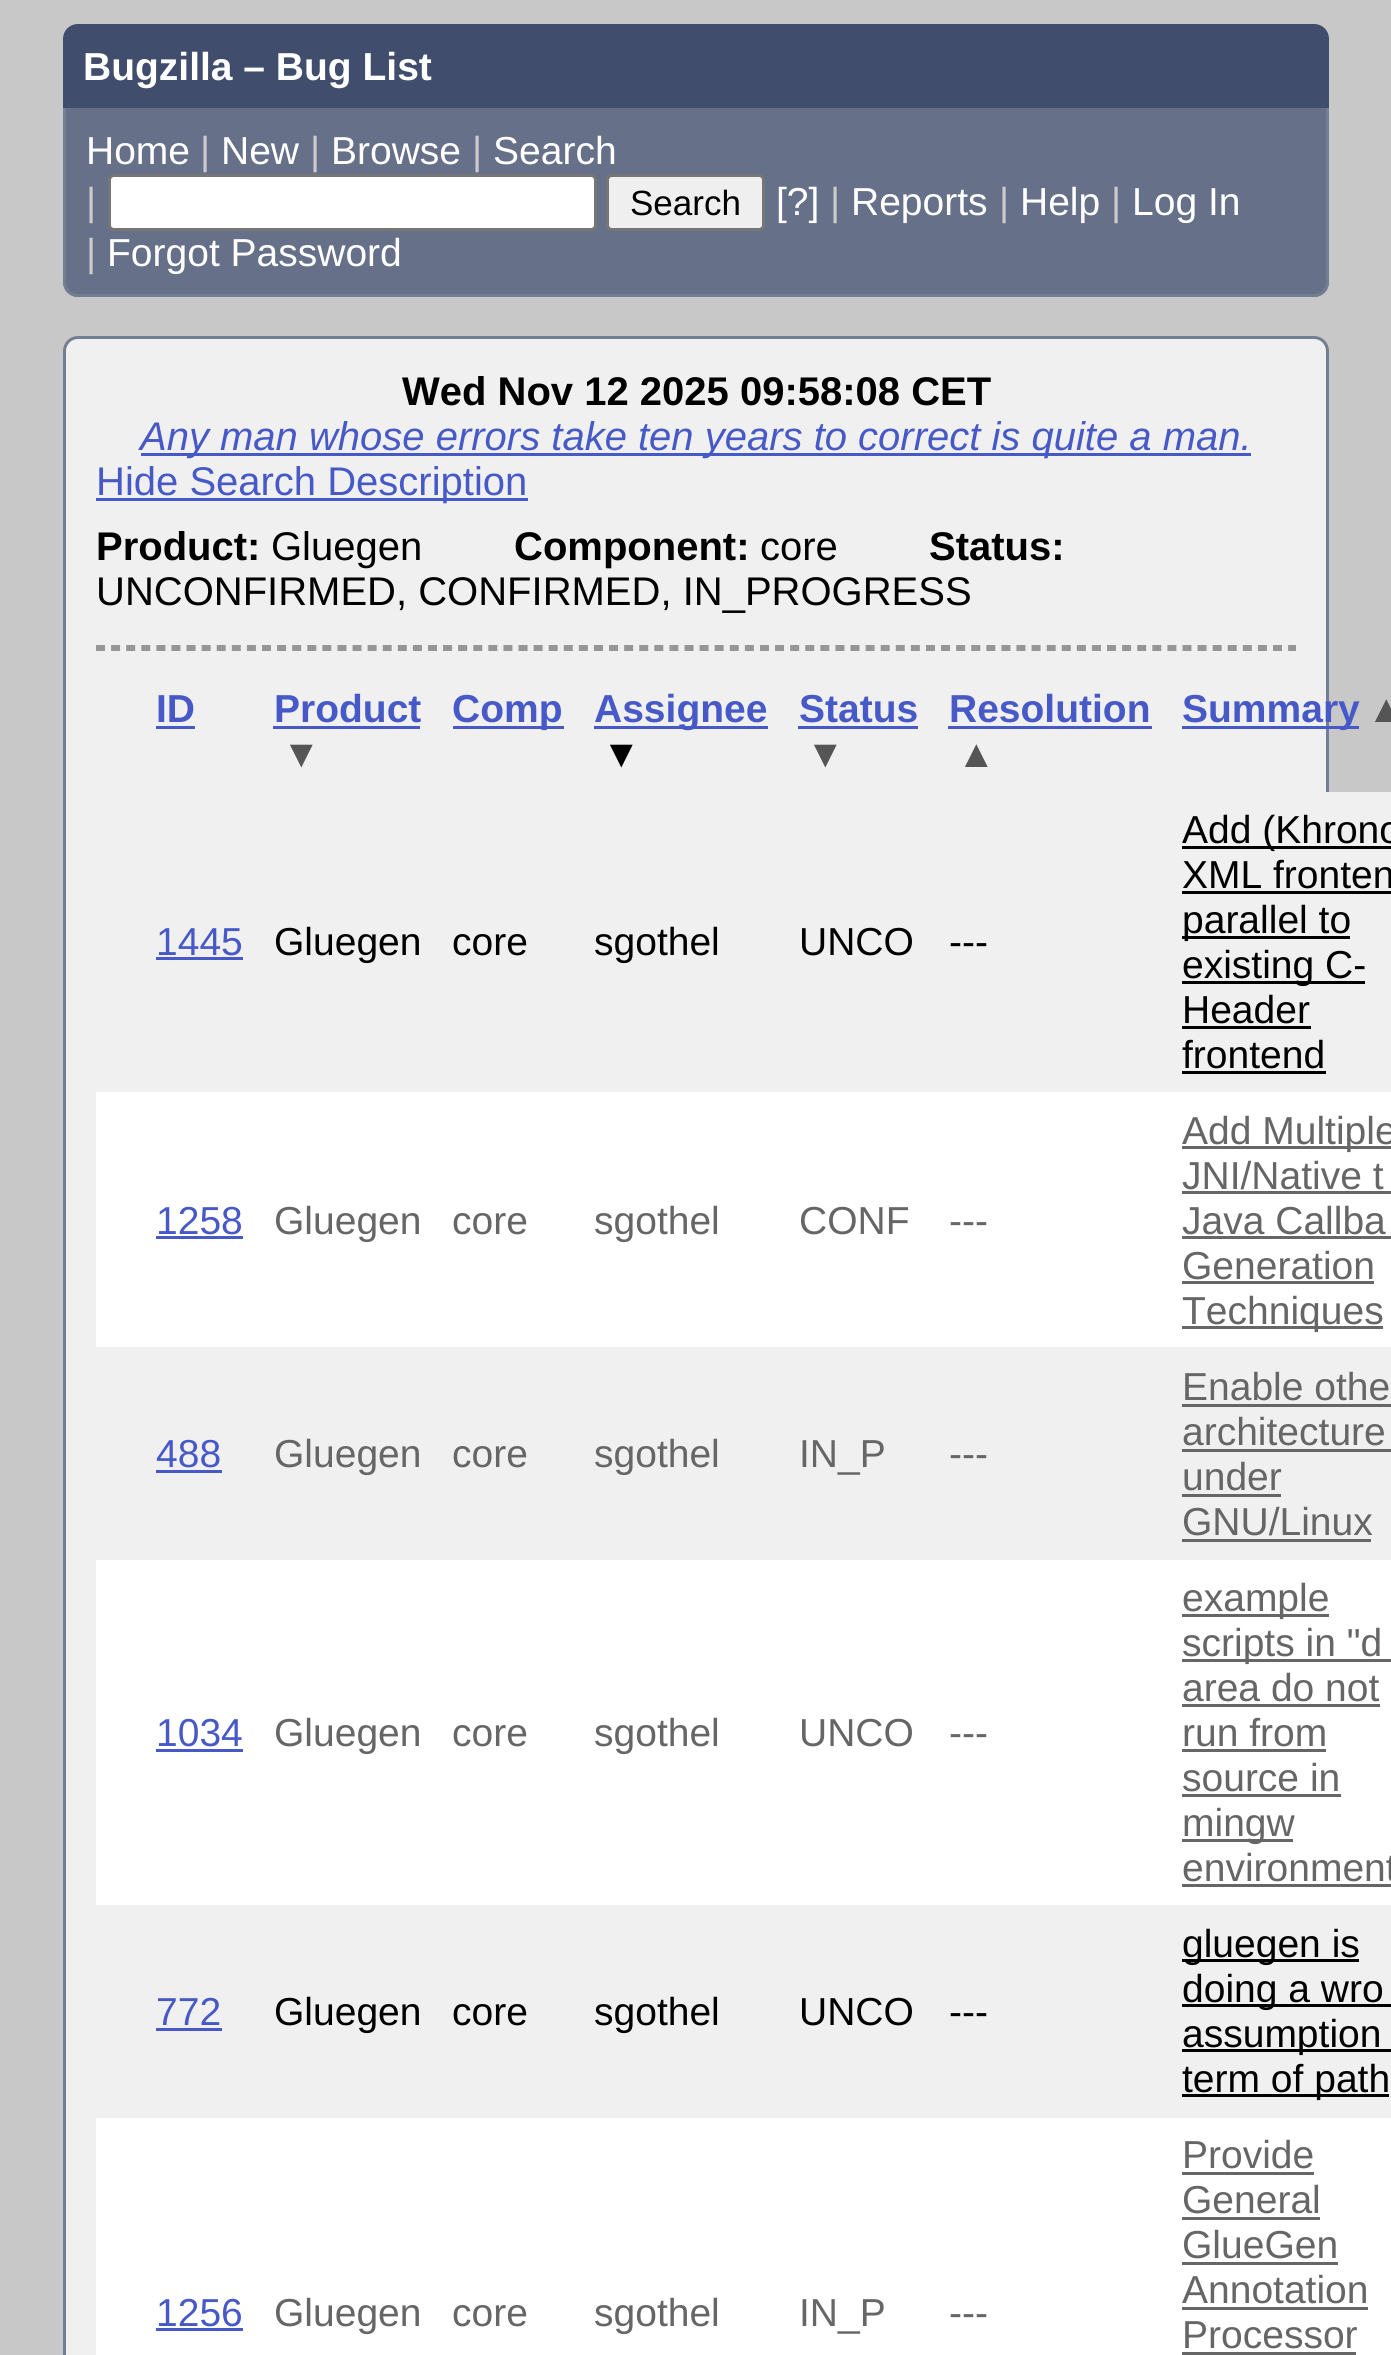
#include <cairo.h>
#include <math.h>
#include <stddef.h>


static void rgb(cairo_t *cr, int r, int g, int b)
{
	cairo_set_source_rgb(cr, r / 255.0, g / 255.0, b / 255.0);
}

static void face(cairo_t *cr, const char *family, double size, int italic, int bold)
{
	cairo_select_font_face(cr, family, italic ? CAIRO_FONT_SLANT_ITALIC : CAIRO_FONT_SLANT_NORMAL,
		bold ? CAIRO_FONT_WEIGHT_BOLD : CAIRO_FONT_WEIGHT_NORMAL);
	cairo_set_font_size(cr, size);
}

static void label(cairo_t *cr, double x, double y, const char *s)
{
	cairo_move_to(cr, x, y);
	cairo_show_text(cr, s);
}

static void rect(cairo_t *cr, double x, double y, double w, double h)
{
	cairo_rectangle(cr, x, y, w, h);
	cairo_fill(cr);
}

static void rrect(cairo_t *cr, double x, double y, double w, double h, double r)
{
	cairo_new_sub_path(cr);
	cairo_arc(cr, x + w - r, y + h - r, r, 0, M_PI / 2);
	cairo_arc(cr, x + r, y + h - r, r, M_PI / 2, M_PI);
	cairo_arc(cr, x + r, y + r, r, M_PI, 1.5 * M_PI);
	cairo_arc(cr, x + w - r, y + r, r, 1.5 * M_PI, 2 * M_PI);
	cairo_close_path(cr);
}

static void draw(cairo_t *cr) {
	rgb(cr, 200, 200, 200);
	cairo_paint(cr);
	rgb(cr, 64, 77, 108);
	cairo_new_path(cr);
	cairo_move_to(cr, 78, 24);
	cairo_line_to(cr, 1314, 24);
	cairo_curve_to(cr, 1322.5, 24, 1329, 30.5, 1329, 39);
	cairo_line_to(cr, 1329, 108);
	cairo_line_to(cr, 63, 108);
	cairo_line_to(cr, 63, 39);
	cairo_curve_to(cr, 63, 30.5, 69.5, 24, 78, 24);
	cairo_close_path(cr);
	cairo_fill(cr);
	face(cr, "Liberation Sans", 39, 0, 1);
	rgb(cr, 255, 255, 255);
	label(cr, 83, 80, "Bugzilla – Bug List");
	rgb(cr, 102, 112, 137);
	cairo_new_path(cr);
	cairo_move_to(cr, 63, 108);
	cairo_line_to(cr, 1329, 108);
	cairo_line_to(cr, 1329, 282);
	cairo_curve_to(cr, 1329, 290.5, 1322.5, 297, 1314, 297);
	cairo_line_to(cr, 78, 297);
	cairo_curve_to(cr, 69.5, 297, 63, 290.5, 63, 282);
	cairo_close_path(cr);
	cairo_fill(cr);
	rgb(cr, 116, 126, 147);
	cairo_set_fill_rule(cr, CAIRO_FILL_RULE_EVEN_ODD);
	cairo_new_path(cr);
	cairo_move_to(cr, 63, 108);
	cairo_line_to(cr, 1329, 108);
	cairo_line_to(cr, 1329, 282);
	cairo_curve_to(cr, 1329, 290, 1322, 297, 1314, 297);
	cairo_line_to(cr, 78, 297);
	cairo_curve_to(cr, 70, 297, 63, 290, 63, 282);
	cairo_close_path(cr);
	cairo_move_to(cr, 66, 108);
	cairo_line_to(cr, 1326, 108);
	cairo_line_to(cr, 1326, 282);
	cairo_curve_to(cr, 1326, 289, 1321, 294, 1314, 294);
	cairo_line_to(cr, 78, 294);
	cairo_curve_to(cr, 71, 294, 66, 289, 66, 282);
	cairo_close_path(cr);
	cairo_fill(cr);
	face(cr, "Liberation Sans", 39, 0, 0);
	rgb(cr, 255, 255, 255);
	label(cr, 86, 164, "Home");
	rgb(cr, 204, 204, 204);
	label(cr, 200, 164, "|");
	rgb(cr, 255, 255, 255);
	label(cr, 221, 164, "New");
	rgb(cr, 204, 204, 204);
	label(cr, 310, 164, "|");
	rgb(cr, 255, 255, 255);
	label(cr, 331, 164, "Browse");
	rgb(cr, 204, 204, 204);
	label(cr, 472, 164, "|");
	rgb(cr, 255, 255, 255);
	label(cr, 493, 164, "Search");
	rgb(cr, 204, 204, 204);
	label(cr, 86, 215, "|");
	rgb(cr, 255, 255, 255);
	rrect(cr, 109.5, 175.5, 486, 54, 4.5);
	cairo_fill_preserve(cr);
	rgb(cr, 118, 118, 118);
	cairo_set_line_width(cr, 3);
	cairo_stroke(cr);
	rgb(cr, 239, 239, 239);
	rrect(cr, 607.5, 175.5, 156, 54, 4.5);
	cairo_fill_preserve(cr);
	rgb(cr, 118, 118, 118);
	cairo_stroke(cr);
	face(cr, "Liberation Sans", 35, 0, 0);
	rgb(cr, 0, 0, 0);
	label(cr, 630, 215, "Search");
	face(cr, "Liberation Sans", 39, 0, 0);
	rgb(cr, 255, 255, 255);
	label(cr, 776, 215, "[?]");
	rgb(cr, 204, 204, 204);
	label(cr, 830, 215, "|");
	rgb(cr, 255, 255, 255);
	label(cr, 851, 215, "Reports");
	rgb(cr, 204, 204, 204);
	label(cr, 999, 215, "|");
	rgb(cr, 255, 255, 255);
	label(cr, 1020, 215, "Help");
	rgb(cr, 204, 204, 204);
	label(cr, 1111, 215, "|");
	rgb(cr, 255, 255, 255);
	label(cr, 1132, 215, "Log In");
	rgb(cr, 204, 204, 204);
	label(cr, 86, 266, "|");
	rgb(cr, 255, 255, 255);
	label(cr, 107, 266, "Forgot Password");
	rgb(cr, 240, 240, 240);
	rrect(cr, 64.5, 337.5, 1263, 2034, 13.5);
	cairo_fill_preserve(cr);
	rgb(cr, 116, 126, 147);
	cairo_stroke(cr);
	face(cr, "Liberation Sans", 40, 0, 1);
	rgb(cr, 0, 0, 0);
	label(cr, 402, 405, "Wed Nov 12 2025 09:58:08 CET");
	rgb(cr, 70, 89, 199);
	rect(cr, 141, 453, 1110, 3);
	face(cr, "Liberation Sans", 40, 1, 0);
	label(cr, 140, 450, "Any man whose errors take ten years to correct is quite a man.");
	rect(cr, 96, 498, 432, 3);
	face(cr, "Liberation Sans", 40, 0, 0);
	label(cr, 96, 495, "Hide Search Description");
	face(cr, "Liberation Sans", 40, 0, 1);
	rgb(cr, 0, 0, 0);
	label(cr, 96, 560, "Product:");
	face(cr, "Liberation Sans", 40, 0, 0);
	label(cr, 271, 560, "Gluegen");
	face(cr, "Liberation Sans", 40, 0, 1);
	label(cr, 514, 560, "Component:");
	face(cr, "Liberation Sans", 40, 0, 0);
	label(cr, 760, 560, "core");
	face(cr, "Liberation Sans", 40, 0, 1);
	label(cr, 929, 560, "Status:");
	face(cr, "Liberation Sans", 40, 0, 0);
	label(cr, 96, 605, "UNCONFIRMED, CONFIRMED, IN_PROGRESS");
	cairo_new_path(cr);
	cairo_move_to(cr, 96, 646.5);
	cairo_line_to(cr, 1296, 646.5);
	rgb(cr, 150, 150, 150);
	cairo_set_dash(cr, (double[]){9, 6.09}, 2, 0);
	cairo_stroke(cr);
	rect(cr, 1293, 645, 3, 6);
	cairo_new_path(cr);
	cairo_move_to(cr, 96, 649.5);
	cairo_line_to(cr, 1296, 649.5);
	cairo_stroke(cr);
	face(cr, "Liberation Sans", 39, 0, 1);
	rgb(cr, 70, 89, 199);
	label(cr, 156, 722, "ID");
	rect(cr, 156, 726, 39, 3);
	label(cr, 274, 722, "Product");
	rect(cr, 273, 726, 147, 3);
	rgb(cr, 85, 85, 85);
	label(cr, 282, 767, "▼");
	rgb(cr, 70, 89, 199);
	rect(cr, 453, 726, 111, 3);
	label(cr, 452, 722, "Comp");
	rect(cr, 594, 726, 174, 3);
	label(cr, 594, 722, "Assignee");
	rgb(cr, 0, 0, 0);
	label(cr, 602, 767, "▼");
	rgb(cr, 70, 89, 199);
	label(cr, 799, 722, "Status");
	rect(cr, 798, 726, 120, 3);
	rgb(cr, 85, 85, 85);
	label(cr, 806, 767, "▼");
	rgb(cr, 70, 89, 199);
	label(cr, 949, 722, "Resolution");
	rect(cr, 948, 726, 204, 3);
	rgb(cr, 85, 85, 85);
	label(cr, 957, 767, "▲");
	rgb(cr, 70, 89, 199);
	rect(cr, 1182, 726, 177, 3);
	label(cr, 1182, 722, "Summary");
	rgb(cr, 85, 85, 85);
	label(cr, 1367, 722, "▲");
	rgb(cr, 240, 240, 240);
	rect(cr, 1326, 792, 65, 300);
	face(cr, "Liberation Sans", 39, 0, 0);
	rgb(cr, 70, 89, 199);
	label(cr, 156, 955, "1445");
	rect(cr, 156, 957, 87, 3);
	rgb(cr, 0, 0, 0);
	label(cr, 274, 955, "Gluegen");
	label(cr, 452, 955, "core");
	label(cr, 594, 955, "sgothel");
	label(cr, 799, 955, "UNCO");
	label(cr, 949, 955, "---");
	rect(cr, 1182, 846, 209, 3);
	label(cr, 1182, 843, "Add (Khrono");
	label(cr, 1182, 888, "XML fronten");
	rect(cr, 1182, 891, 209, 3);
	rect(cr, 1182, 936, 168, 3);
	label(cr, 1182, 933, "parallel to");
	rect(cr, 1182, 981, 183, 3);
	label(cr, 1182, 978, "existing C-");
	label(cr, 1182, 1023, "Header");
	rect(cr, 1182, 1026, 129, 3);
	label(cr, 1182, 1068, "frontend");
	rect(cr, 1182, 1071, 144, 3);
	rgb(cr, 255, 255, 255);
	rect(cr, 96, 1092, 1295, 255);
	rgb(cr, 70, 89, 199);
	label(cr, 156, 1234, "1258");
	rect(cr, 156, 1236, 87, 3);
	rgb(cr, 102, 102, 102);
	label(cr, 274, 1234, "Gluegen");
	label(cr, 452, 1234, "core");
	label(cr, 594, 1234, "sgothel");
	label(cr, 799, 1234, "CONF");
	label(cr, 949, 1234, "---");
	rect(cr, 1182, 1146, 209, 3);
	label(cr, 1182, 1144, "Add Multiple");
	label(cr, 1182, 1189, "JNI/Native t");
	rect(cr, 1182, 1191, 209, 3);
	label(cr, 1182, 1234, "Java Callba");
	rect(cr, 1182, 1236, 209, 3);
	label(cr, 1182, 1279, "Generation");
	rect(cr, 1182, 1281, 192, 3);
	rect(cr, 1182, 1326, 201, 3);
	label(cr, 1182, 1324, "Techniques");
	rgb(cr, 240, 240, 240);
	rect(cr, 1326, 1347, 65, 213);
	rgb(cr, 70, 89, 199);
	label(cr, 156, 1467, "488");
	rect(cr, 156, 1470, 66, 3);
	rgb(cr, 102, 102, 102);
	label(cr, 274, 1467, "Gluegen");
	label(cr, 452, 1467, "core");
	label(cr, 594, 1467, "sgothel");
	label(cr, 799, 1467, "IN_P");
	label(cr, 949, 1467, "---");
	label(cr, 1182, 1400, "Enable othe");
	rect(cr, 1182, 1404, 209, 3);
	label(cr, 1182, 1445, "architecture");
	rect(cr, 1182, 1449, 209, 3);
	label(cr, 1182, 1490, "under");
	rect(cr, 1182, 1494, 99, 3);
	label(cr, 1182, 1535, "GNU/Linux");
	rect(cr, 1182, 1539, 189, 3);
	rgb(cr, 255, 255, 255);
	rect(cr, 96, 1560, 1295, 345);
	rgb(cr, 70, 89, 199);
	label(cr, 156, 1746, "1034");
	rect(cr, 156, 1749, 87, 3);
	rgb(cr, 102, 102, 102);
	label(cr, 274, 1746, "Gluegen");
	label(cr, 452, 1746, "core");
	label(cr, 594, 1746, "sgothel");
	label(cr, 799, 1746, "UNCO");
	label(cr, 949, 1746, "---");
	rect(cr, 1182, 1614, 147, 3);
	label(cr, 1182, 1611, "example");
	rect(cr, 1182, 1659, 209, 3);
	label(cr, 1182, 1656, "scripts in \"d");
	label(cr, 1182, 1701, "area do not");
	rect(cr, 1182, 1704, 198, 3);
	label(cr, 1182, 1746, "run from");
	rect(cr, 1182, 1749, 144, 3);
	label(cr, 1182, 1791, "source in");
	rect(cr, 1182, 1794, 159, 3);
	rect(cr, 1182, 1839, 111, 3);
	label(cr, 1182, 1836, "mingw");
	label(cr, 1182, 1881, "environment");
	rect(cr, 1182, 1884, 209, 3);
	rgb(cr, 240, 240, 240);
	rect(cr, 1326, 1905, 65, 213);
	rgb(cr, 70, 89, 199);
	label(cr, 156, 2025, "772");
	rect(cr, 156, 2028, 66, 3);
	rgb(cr, 0, 0, 0);
	label(cr, 274, 2025, "Gluegen");
	label(cr, 452, 2025, "core");
	label(cr, 594, 2025, "sgothel");
	label(cr, 799, 2025, "UNCO");
	label(cr, 949, 2025, "---");
	rect(cr, 1182, 1959, 177, 3);
	label(cr, 1182, 1957, "gluegen is");
	rect(cr, 1182, 2004, 209, 3);
	label(cr, 1182, 2002, "doing a wro");
	rect(cr, 1182, 2049, 209, 3);
	label(cr, 1182, 2047, "assumption");
	rect(cr, 1182, 2094, 207, 3);
	label(cr, 1182, 2092, "term of path");
	rgb(cr, 255, 255, 255);
	rect(cr, 96, 2118, 1295, 237);
	rgb(cr, 70, 89, 199);
	label(cr, 156, 2326, "1256");
	rect(cr, 156, 2328, 87, 3);
	rgb(cr, 102, 102, 102);
	label(cr, 274, 2326, "Gluegen");
	label(cr, 452, 2326, "core");
	label(cr, 594, 2326, "sgothel");
	label(cr, 799, 2326, "IN_P");
	label(cr, 949, 2326, "---");
	label(cr, 1182, 2168, "Provide");
	rect(cr, 1182, 2172, 132, 3);
	label(cr, 1182, 2213, "General");
	rect(cr, 1182, 2217, 138, 3);
	label(cr, 1182, 2258, "GlueGen");
	rect(cr, 1182, 2262, 156, 3);
	label(cr, 1182, 2303, "Annotation");
	rect(cr, 1182, 2307, 186, 3);
	label(cr, 1182, 2348, "Processor");
	rect(cr, 1182, 2352, 174, 3);
}

int main(void) {
	cairo_surface_t *surface = cairo_image_surface_create(CAIRO_FORMAT_RGB24, 1391, 2355);
	cairo_t *cr = cairo_create(surface);
	cairo_font_options_t *options = cairo_font_options_create();
	cairo_font_options_set_hint_metrics(options, CAIRO_HINT_METRICS_OFF);
	cairo_font_options_set_hint_style(options, CAIRO_HINT_STYLE_NONE);
	cairo_set_font_options(cr, options);
	cairo_set_miter_limit(cr, 4);
	draw(cr);
	cairo_surface_write_to_png(surface, "render.png");
	cairo_font_options_destroy(options);
	cairo_destroy(cr);
	cairo_surface_destroy(surface);
	return 0;
}
